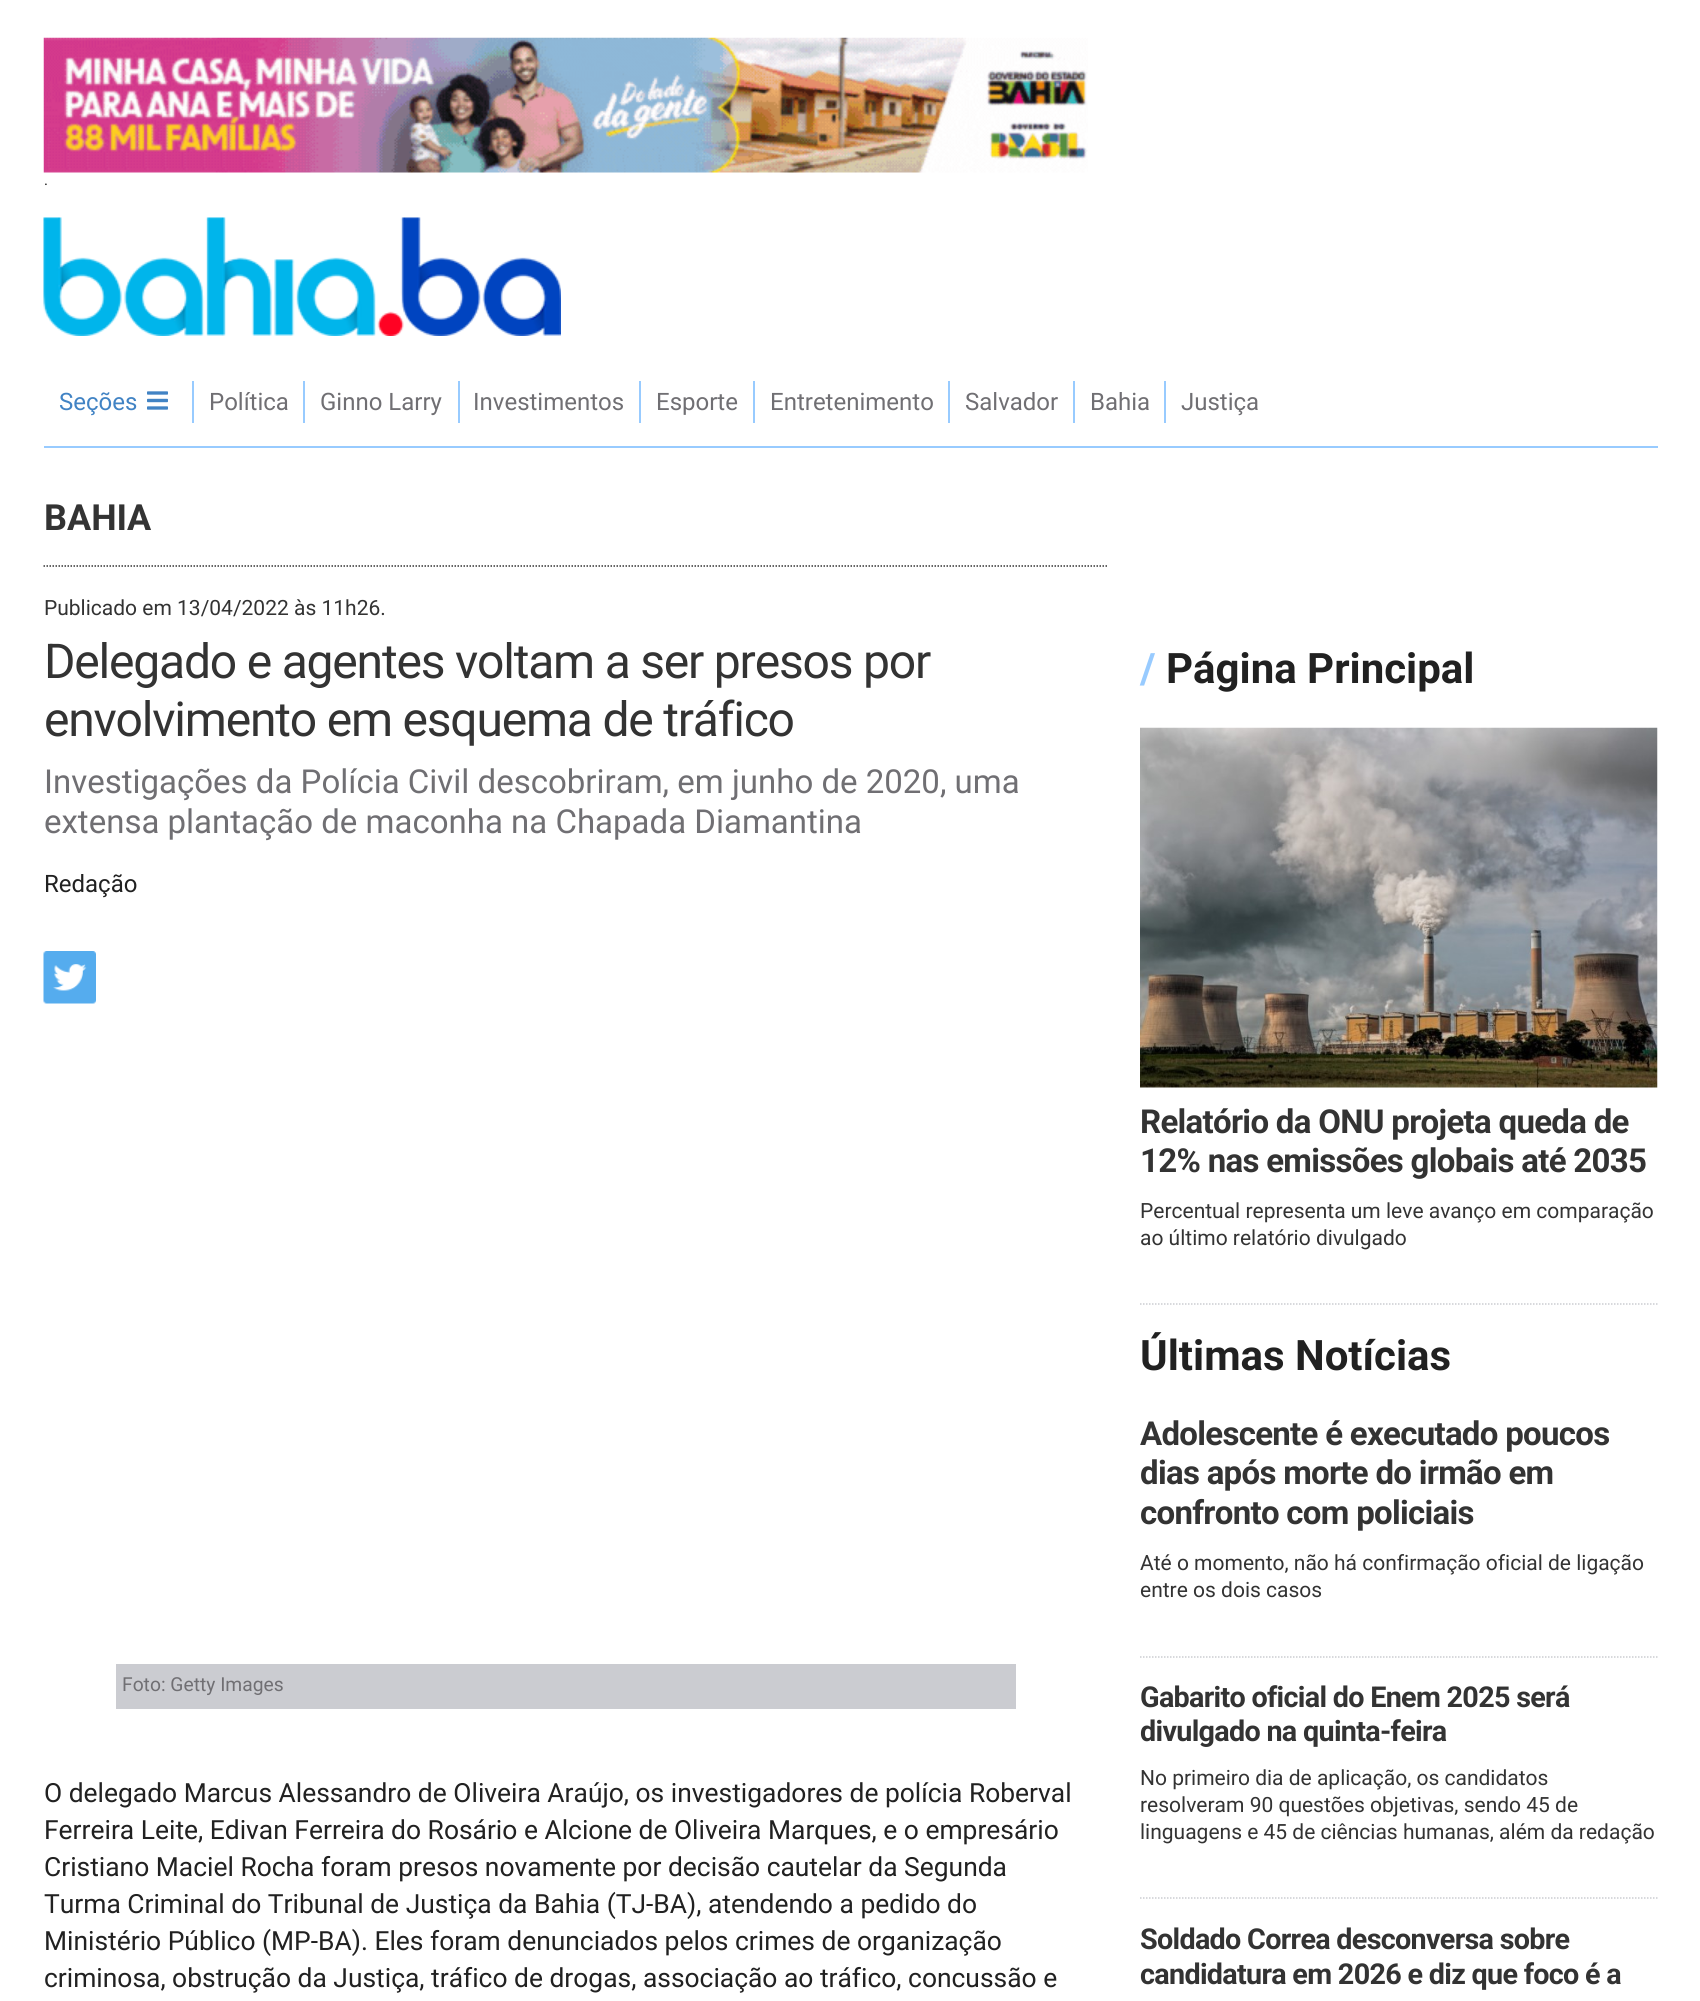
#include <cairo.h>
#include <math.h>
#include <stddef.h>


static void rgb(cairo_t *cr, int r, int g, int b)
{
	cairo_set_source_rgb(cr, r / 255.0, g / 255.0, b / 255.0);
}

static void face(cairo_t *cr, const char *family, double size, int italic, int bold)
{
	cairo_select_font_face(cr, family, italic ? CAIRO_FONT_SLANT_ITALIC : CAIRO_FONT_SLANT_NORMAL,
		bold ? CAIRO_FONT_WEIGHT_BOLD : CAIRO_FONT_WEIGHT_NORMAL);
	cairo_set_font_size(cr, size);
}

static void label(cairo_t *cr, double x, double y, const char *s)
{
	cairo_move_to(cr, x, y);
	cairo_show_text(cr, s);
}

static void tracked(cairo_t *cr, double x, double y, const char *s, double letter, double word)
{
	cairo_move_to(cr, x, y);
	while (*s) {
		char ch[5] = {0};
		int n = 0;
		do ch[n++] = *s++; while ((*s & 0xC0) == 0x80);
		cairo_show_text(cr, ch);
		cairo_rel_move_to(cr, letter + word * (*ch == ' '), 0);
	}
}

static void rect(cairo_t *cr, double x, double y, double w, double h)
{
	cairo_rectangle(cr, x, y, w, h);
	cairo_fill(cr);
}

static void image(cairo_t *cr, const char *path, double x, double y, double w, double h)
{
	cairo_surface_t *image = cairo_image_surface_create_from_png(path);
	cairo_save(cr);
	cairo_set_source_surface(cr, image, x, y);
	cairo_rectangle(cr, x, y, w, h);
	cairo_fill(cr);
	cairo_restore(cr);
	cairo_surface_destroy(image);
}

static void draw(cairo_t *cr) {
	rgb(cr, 255, 255, 255);
	cairo_paint(cr);
	rgb(cr, 152, 203, 255);
	rect(cr, 44, 446, 1614, 2);
	image(cr, "image0.png", 43, 37, 1045, 136);
	face(cr, "Roboto", 15, 0, 0);
	rgb(cr, 33, 33, 33);
	label(cr, 44, 185, ".");
	image(cr, "image1.png", 43, 217, 518, 119);
	rgb(cr, 152, 203, 255);
	rect(cr, 192, 381, 2, 42);
	face(cr, "Roboto", 24, 0, 0);
	rgb(cr, 65, 131, 196);
	label(cr, 59, 410, "Seções");
	image(cr, "image2.png", 147, 391, 21, 19);
	rgb(cr, 152, 203, 255);
	rect(cr, 303, 381, 2, 42);
	rgb(cr, 112, 111, 115);
	label(cr, 209, 410, "Política");
	rgb(cr, 152, 203, 255);
	rect(cr, 458, 381, 2, 42);
	rgb(cr, 112, 111, 115);
	label(cr, 320, 410, "Ginno Larry");
	rgb(cr, 152, 203, 255);
	rect(cr, 639, 381, 2, 42);
	rgb(cr, 112, 111, 115);
	label(cr, 473, 410, "Investimentos");
	rgb(cr, 152, 203, 255);
	rect(cr, 753, 381, 2, 42);
	rgb(cr, 112, 111, 115);
	label(cr, 656, 410, "Esporte");
	rgb(cr, 152, 203, 255);
	rect(cr, 948, 381, 2, 42);
	rgb(cr, 112, 111, 115);
	label(cr, 770, 410, "Entretenimento");
	rgb(cr, 152, 203, 255);
	rect(cr, 1073, 381, 2, 42);
	rgb(cr, 112, 111, 115);
	label(cr, 965, 410, "Salvador");
	rgb(cr, 152, 203, 255);
	rect(cr, 1164, 381, 2, 42);
	rgb(cr, 112, 111, 115);
	label(cr, 1090, 410, "Bahia");
	label(cr, 1181, 410, "Justiça");
	cairo_new_path(cr);
	cairo_move_to(cr, 43.5, 566);
	cairo_line_to(cr, 1108.5, 566);
	rgb(cr, 51, 51, 51);
	cairo_set_line_width(cr, 1.5);
	cairo_set_dash(cr, (double[]){1.5, 1.5}, 2, 0);
	cairo_stroke(cr);
	face(cr, "Roboto", 36, 0, 1);
	label(cr, 44, 530, "BAHIA");
	face(cr, "Roboto", 21, 0, 0);
	label(cr, 44, 615, "Publicado em 13/04/2022 às 11h26.");
	face(cr, "Roboto", 48, 0, 0);
	tracked(cr, 44, 678, "Delegado e agentes voltam a ser presos por", -1.2, 0);
	tracked(cr, 44, 736, "envolvimento em esquema de tráfico", -1.2, 0);
	face(cr, "Roboto", 33, 0, 0);
	rgb(cr, 112, 111, 115);
	label(cr, 44, 793, "Investigações da Polícia Civil descobriram, em junho de 2020, uma");
	label(cr, 44, 833, "extensa plantação de maconha na Chapada Diamantina");
	face(cr, "Roboto", 24, 0, 0);
	rgb(cr, 33, 33, 33);
	label(cr, 44, 892, "Redação");
	image(cr, "image3.png", 43, 951, 53, 53);
	rgb(cr, 203, 204, 209);
	rect(cr, 116, 1664, 900, 45);
	face(cr, "Roboto", 19.25, 0, 0);
	rgb(cr, 112, 111, 115);
	label(cr, 122, 1691, "Foto: Getty Images");
	face(cr, "Roboto", 26.4, 0, 0);
	rgb(cr, 33, 33, 33);
	label(cr, 44, 1802, "O delegado Marcus Alessandro de Oliveira Araújo, os investigadores de polícia Roberval");
	label(cr, 44, 1839, "Ferreira Leite, Edivan Ferreira do Rosário e Alcione de Oliveira Marques, e o empresário");
	label(cr, 44, 1876, "Cristiano Maciel Rocha foram presos novamente por decisão cautelar da Segunda");
	label(cr, 44, 1913, "Turma Criminal do Tribunal de Justiça da Bahia (TJ-BA), atendendo a pedido do");
	label(cr, 44, 1950, "Ministério Público (MP-BA). Eles foram denunciados pelos crimes de organização");
	label(cr, 44, 1987, "criminosa, obstrução da Justiça, tráfico de drogas, associação ao tráfico, concussão e");
	face(cr, "Roboto", 42, 0, 1);
	rgb(cr, 152, 203, 255);
	label(cr, 1140, 683, "/");
	rgb(cr, 33, 33, 33);
	label(cr, 1166, 683, "Página Principal");
	cairo_new_path(cr);
	cairo_move_to(cr, 1140, 1304);
	cairo_line_to(cr, 1657.5, 1304);
	rgb(cr, 203, 204, 209);
	cairo_stroke(cr);
	image(cr, "image4.png", 1140, 727, 518, 361);
	face(cr, "Roboto", 33, 0, 1);
	rgb(cr, 51, 51, 51);
	tracked(cr, 1140, 1133, "Relatório da ONU projeta queda de", -0.7, 0);
	tracked(cr, 1140, 1172, "12% nas emissões globais até 2035", -0.7, 0);
	face(cr, "Roboto", 21, 0, 0);
	label(cr, 1140, 1218, "Percentual representa um leve avanço em comparação");
	label(cr, 1140, 1245, "ao último relatório divulgado");
	face(cr, "Roboto", 42, 0, 1);
	rgb(cr, 33, 33, 33);
	label(cr, 1140, 1370, "Últimas Notícias");
	cairo_new_path(cr);
	cairo_move_to(cr, 1140, 1657);
	cairo_line_to(cr, 1657.5, 1657);
	rgb(cr, 203, 204, 209);
	cairo_stroke(cr);
	face(cr, "Roboto", 33, 0, 1);
	rgb(cr, 51, 51, 51);
	tracked(cr, 1140, 1445, "Adolescente é executado poucos", -0.7, 0);
	tracked(cr, 1140, 1484, "dias após morte do irmão em", -0.7, 0);
	tracked(cr, 1140, 1524, "confronto com policiais", -0.7, 0);
	face(cr, "Roboto", 21, 0, 0);
	label(cr, 1140, 1570, "Até o momento, não há confirmação oficial de ligação");
	label(cr, 1140, 1597, "entre os dois casos");
	cairo_new_path(cr);
	cairo_move_to(cr, 1140, 1898);
	cairo_line_to(cr, 1657.5, 1898);
	rgb(cr, 203, 204, 209);
	cairo_stroke(cr);
	face(cr, "Roboto", 28.75, 0, 1);
	rgb(cr, 51, 51, 51);
	tracked(cr, 1140, 1707, "Gabarito oficial do Enem 2025 será", -0.7, 0);
	tracked(cr, 1140, 1741, "divulgado na quinta-feira", -0.7, 0);
	face(cr, "Roboto", 21, 0, 0);
	label(cr, 1140, 1785, "No primeiro dia de aplicação, os candidatos");
	label(cr, 1140, 1812, "resolveram 90 questões objetivas, sendo 45 de");
	label(cr, 1140, 1839, "linguagens e 45 de ciências humanas, além da redação");
	face(cr, "Roboto", 28.75, 0, 1);
	tracked(cr, 1140, 1949, "Soldado Correa desconversa sobre", -0.7, 0);
	tracked(cr, 1140, 1984, "candidatura em 2026 e diz que foco é a", -0.7, 0);
}

int main(void) {
	cairo_surface_t *surface = cairo_image_surface_create(CAIRO_FORMAT_RGB24, 1700, 2001);
	cairo_t *cr = cairo_create(surface);
	cairo_font_options_t *options = cairo_font_options_create();
	cairo_font_options_set_hint_metrics(options, CAIRO_HINT_METRICS_OFF);
	cairo_font_options_set_hint_style(options, CAIRO_HINT_STYLE_NONE);
	cairo_set_font_options(cr, options);
	cairo_set_miter_limit(cr, 4);
	draw(cr);
	cairo_surface_write_to_png(surface, "render.png");
	cairo_font_options_destroy(options);
	cairo_destroy(cr);
	cairo_surface_destroy(surface);
	return 0;
}
